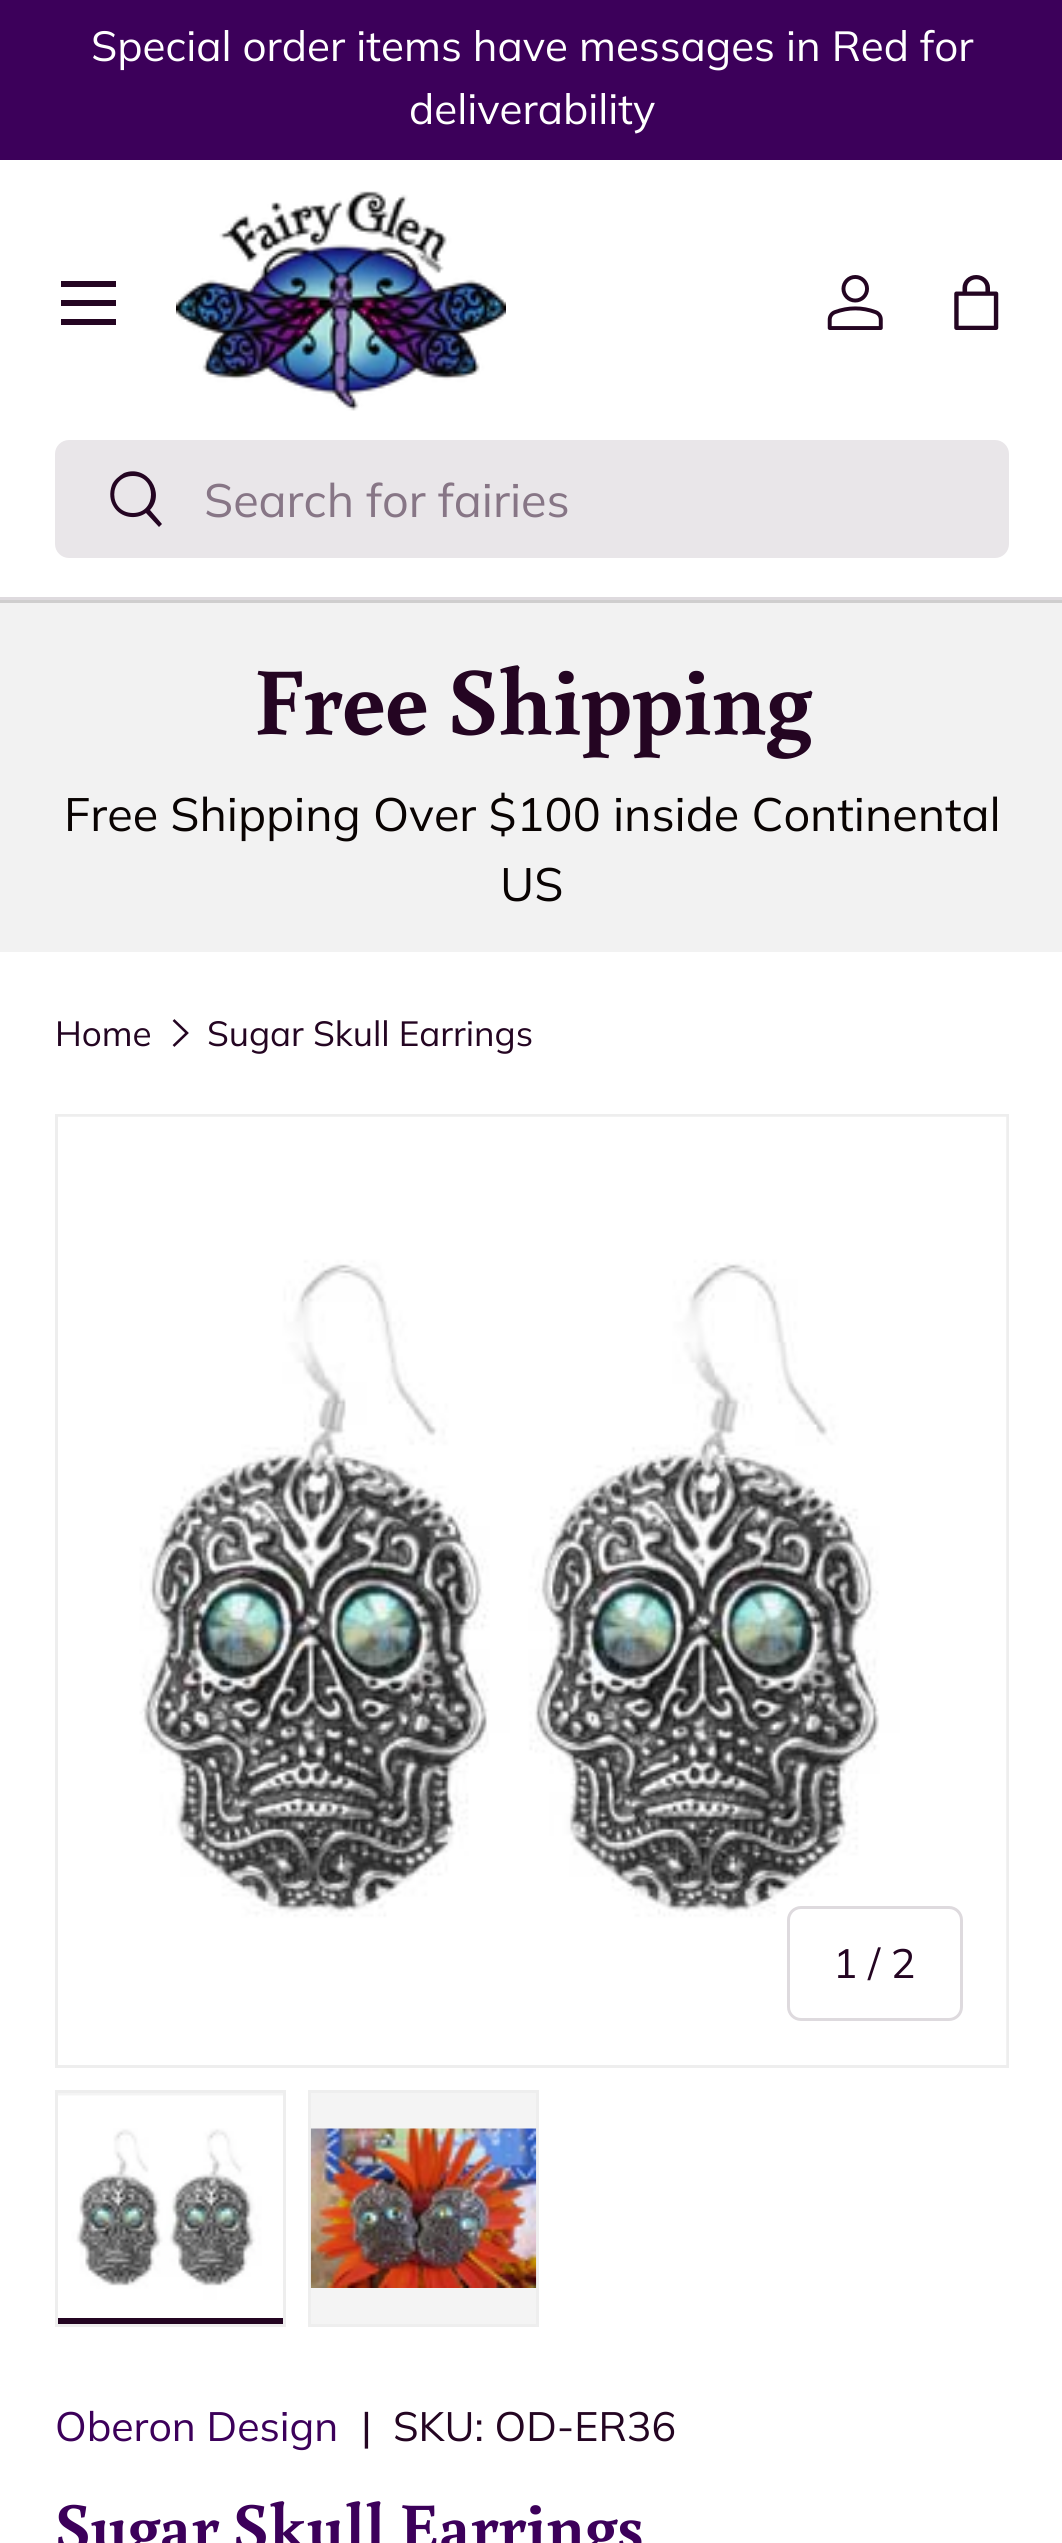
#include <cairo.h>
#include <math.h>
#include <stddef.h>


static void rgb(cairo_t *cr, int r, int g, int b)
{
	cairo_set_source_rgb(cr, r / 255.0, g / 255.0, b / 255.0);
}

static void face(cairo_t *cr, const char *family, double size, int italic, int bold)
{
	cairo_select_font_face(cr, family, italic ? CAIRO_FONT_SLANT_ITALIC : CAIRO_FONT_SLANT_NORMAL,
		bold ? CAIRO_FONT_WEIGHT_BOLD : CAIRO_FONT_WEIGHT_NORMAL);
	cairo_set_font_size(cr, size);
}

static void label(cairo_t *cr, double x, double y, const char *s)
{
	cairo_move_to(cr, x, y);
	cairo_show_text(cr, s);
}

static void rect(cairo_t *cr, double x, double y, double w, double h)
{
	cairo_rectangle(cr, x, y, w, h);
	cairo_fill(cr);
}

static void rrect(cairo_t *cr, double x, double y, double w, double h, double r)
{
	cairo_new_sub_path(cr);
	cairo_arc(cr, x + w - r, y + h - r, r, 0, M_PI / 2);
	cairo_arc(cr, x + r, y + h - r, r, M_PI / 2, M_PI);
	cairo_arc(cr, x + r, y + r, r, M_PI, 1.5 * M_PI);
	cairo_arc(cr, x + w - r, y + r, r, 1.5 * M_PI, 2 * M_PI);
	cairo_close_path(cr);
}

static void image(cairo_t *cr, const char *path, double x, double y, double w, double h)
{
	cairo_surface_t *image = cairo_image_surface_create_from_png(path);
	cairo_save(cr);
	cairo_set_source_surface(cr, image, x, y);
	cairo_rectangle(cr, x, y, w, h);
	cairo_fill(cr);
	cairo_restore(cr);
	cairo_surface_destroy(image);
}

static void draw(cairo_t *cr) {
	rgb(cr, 255, 255, 255);
	cairo_paint(cr);
	rgb(cr, 60, 0, 90);
	rect(cr, 0, 0, 1062, 160);
	face(cr, "Muli", 42.1, 0, 0);
	rgb(cr, 255, 255, 255);
	label(cr, 91, 61, "Special order items have messages in Red for");
	label(cr, 409, 124, "deliverability");
	rgb(cr, 222, 218, 222);
	rect(cr, 0, 597, 1062, 3);
	rgb(cr, 36, 5, 34);
	rect(cr, 61, 281, 55, 6);
	rect(cr, 61, 319, 55, 6);
	rect(cr, 61, 300, 55, 6);
	image(cr, "image0.png", 176, 191, 330, 220);
	image(cr, "image1.png", 827, 275, 56, 55);
	image(cr, "image2.png", 954, 275, 45, 55);
	rgb(cr, 233, 230, 233);
	rrect(cr, 55, 440, 954, 118, 14);
	cairo_fill(cr);
	rgb(cr, 36, 5, 34);
	cairo_new_path(cr);
	cairo_move_to(cr, 150, 510);
	cairo_line_to(cr, 162, 524);
	cairo_line_to(cr, 159, 527);
	cairo_line_to(cr, 146, 513);
	cairo_curve_to(cr, 136, 520, 121, 518, 114, 507);
	cairo_curve_to(cr, 110, 501, 109, 493, 112, 485);
	cairo_curve_to(cr, 114, 480, 119, 476, 124, 473);
	cairo_curve_to(cr, 147, 464, 166, 493, 150, 510);
	cairo_close_path(cr);
	cairo_move_to(cr, 133, 513);
	cairo_curve_to(cr, 157, 513, 157, 476, 133, 476);
	cairo_curve_to(cr, 108, 476, 108, 513, 133, 513);
	cairo_close_path(cr);
	cairo_fill(cr);
	face(cr, "Muli", 46.75, 0, 0);
	rgb(cr, 135, 118, 134);
	label(cr, 204, 517, "Search for fairies");
	rgb(cr, 242, 242, 242);
	rect(cr, 0, 603, 1062, 349);
	rgb(cr, 207, 206, 206);
	rect(cr, 0, 600, 1062, 3);
	face(cr, "Buenard", 95.75, 0, 1);
	rgb(cr, 36, 5, 34);
	label(cr, 253, 734, "Free Shipping");
	face(cr, "Muli", 46.75, 0, 0);
	rgb(cr, 9, 3, 2);
	label(cr, 64, 831, "Free Shipping Over $100 inside Continental");
	label(cr, 500, 901, "US");
	face(cr, "Muli", 35, 0, 0);
	rgb(cr, 36, 5, 34);
	label(cr, 55, 1046, "Home");
	cairo_new_path(cr);
	cairo_move_to(cr, 173.5, 1020);
	cairo_line_to(cr, 187, 1033);
	cairo_line_to(cr, 173.5, 1046);
	cairo_set_line_width(cr, 2.6);
	cairo_stroke(cr);
	label(cr, 207, 1046, "Sugar Skull Earrings");
	cairo_rectangle(cr, 56.5, 1115.5, 951, 951);
	rgb(cr, 238, 238, 238);
	cairo_set_line_width(cr, 3);
	cairo_stroke(cr);
	image(cr, "image3.png", 58, 1116, 949, 949);
	rrect(cr, 788.5, 1907.5, 173, 112, 12.5);
	rgb(cr, 222, 218, 222);
	cairo_stroke(cr);
	face(cr, "Muli", 41, 0, 0);
	rgb(cr, 36, 5, 34);
	label(cr, 833, 1978, "1 / 2");
	rgb(cr, 244, 244, 244);
	rect(cr, 58, 2093, 225, 3);
	cairo_rectangle(cr, 56.5, 2091.5, 228, 234);
	rgb(cr, 238, 238, 238);
	cairo_stroke(cr);
	image(cr, "image4.png", 58, 2095, 225, 223);
	rgb(cr, 36, 5, 34);
	rect(cr, 58, 2318, 225, 6);
	rgb(cr, 244, 244, 244);
	cairo_rectangle(cr, 309.5, 2091.5, 228, 234);
	cairo_fill_preserve(cr);
	rgb(cr, 238, 238, 238);
	cairo_stroke(cr);
	image(cr, "image5.png", 310, 2128, 227, 160);
	rgb(cr, 60, 0, 90);
	label(cr, 55, 2441, "Oberon Design");
	rgb(cr, 36, 5, 34);
	label(cr, 361, 2441, "|");
	label(cr, 393, 2441, "SKU: OD-ER36");
	face(cr, "Buenard", 68, 0, 1);
	rgb(cr, 60, 0, 90);
	label(cr, 55, 2550, "Sugar Skull Earrings");
}

int main(void) {
	cairo_surface_t *surface = cairo_image_surface_create(CAIRO_FORMAT_RGB24, 1062, 2543);
	cairo_t *cr = cairo_create(surface);
	cairo_font_options_t *options = cairo_font_options_create();
	cairo_font_options_set_hint_metrics(options, CAIRO_HINT_METRICS_OFF);
	cairo_font_options_set_hint_style(options, CAIRO_HINT_STYLE_NONE);
	cairo_set_font_options(cr, options);
	cairo_set_miter_limit(cr, 4);
	draw(cr);
	cairo_surface_write_to_png(surface, "render.png");
	cairo_font_options_destroy(options);
	cairo_destroy(cr);
	cairo_surface_destroy(surface);
	return 0;
}
